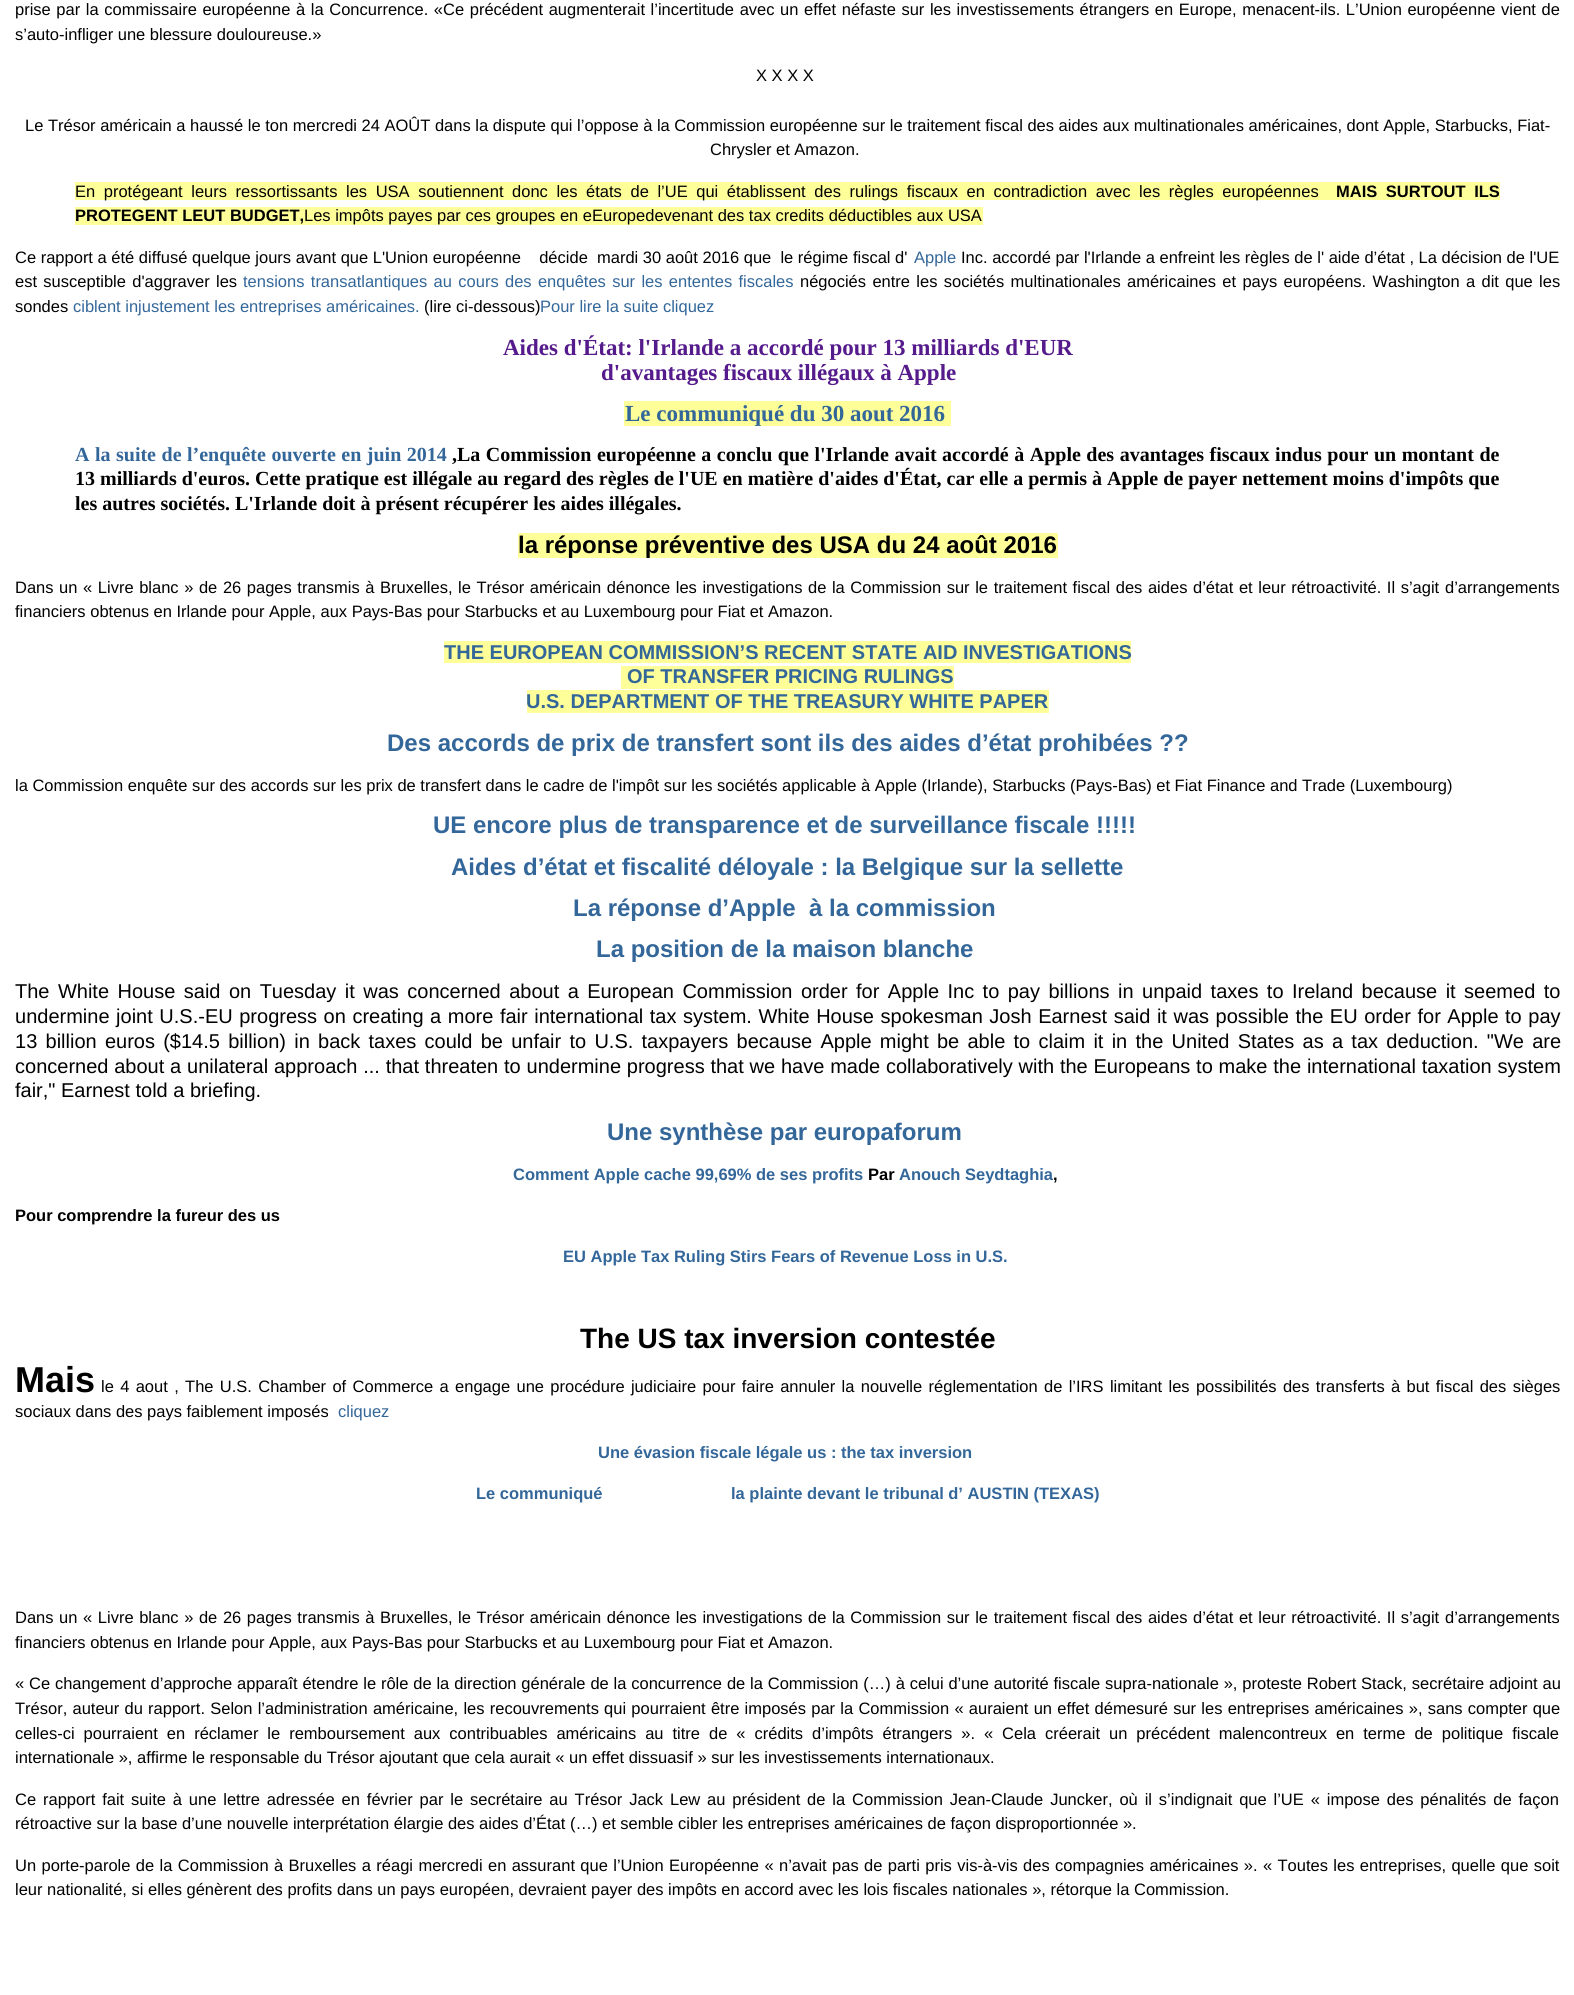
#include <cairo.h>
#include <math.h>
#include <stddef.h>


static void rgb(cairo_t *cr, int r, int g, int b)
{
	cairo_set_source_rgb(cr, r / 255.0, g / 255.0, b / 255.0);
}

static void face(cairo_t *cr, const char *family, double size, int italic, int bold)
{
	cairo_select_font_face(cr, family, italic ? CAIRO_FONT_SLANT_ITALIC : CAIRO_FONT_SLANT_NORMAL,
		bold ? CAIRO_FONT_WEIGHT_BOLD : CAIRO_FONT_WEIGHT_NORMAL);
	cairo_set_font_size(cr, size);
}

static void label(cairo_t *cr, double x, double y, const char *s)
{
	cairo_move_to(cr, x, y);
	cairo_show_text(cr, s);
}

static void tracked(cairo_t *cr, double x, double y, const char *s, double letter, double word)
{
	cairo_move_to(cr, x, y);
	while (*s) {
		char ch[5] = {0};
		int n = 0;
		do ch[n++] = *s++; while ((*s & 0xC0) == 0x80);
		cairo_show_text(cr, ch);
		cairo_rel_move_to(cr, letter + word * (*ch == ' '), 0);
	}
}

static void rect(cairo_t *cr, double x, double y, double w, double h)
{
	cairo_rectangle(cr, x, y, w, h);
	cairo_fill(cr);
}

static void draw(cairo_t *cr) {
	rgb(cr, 255, 255, 255);
	cairo_paint(cr);
	face(cr, "Liberation Sans", 16.5, 0, 0);
	rgb(cr, 0, 0, 0);
	tracked(cr, 15, 15, "prise par la commissaire européenne à la Concurrence. «Ce précédent augmenterait l’incertitude avec un effet néfaste sur les investissements étrangers en Europe, menacent-ils. L’Union européenne vient de", 0, 1);
	label(cr, 15, 40, "s’auto-infliger une blessure douloureuse.»");
	label(cr, 756, 81, "X X X X");
	label(cr, 25, 131, "Le Trésor américain a haussé le ton mercredi 24 AOÛT dans la dispute qui l’oppose à la Commission européenne sur le traitement fiscal des aides aux multinationales américaines, dont Apple, Starbucks, Fiat-");
	label(cr, 710, 155, "Chrysler et Amazon.");
	rgb(cr, 255, 255, 153);
	rect(cr, 75, 182, 1425, 18);
	rgb(cr, 0, 0, 0);
	tracked(cr, 75, 197, "En protégeant leurs ressortissants les USA soutiennent donc les états de l’UE qui établissent des rulings fiscaux en contradiction avec les règles européennes", 0, 4);
	face(cr, "Liberation Sans", 16.5, 0, 1);
	tracked(cr, 1336, 197, "MAIS SURTOUT ILS", 0, 4);
	rgb(cr, 255, 255, 153);
	rect(cr, 75, 207, 908, 18);
	rgb(cr, 0, 0, 0);
	label(cr, 75, 221, "PROTEGENT LEUT BUDGET,");
	face(cr, "Liberation Sans", 16.5, 0, 0);
	label(cr, 304, 221, "Les impôts payes par ces groupes en eEuropedevenant des tax credits déductibles aux USA");
	label(cr, 15, 263, "Ce rapport a été diffusé quelque jours avant que L'Union européenne    décide  mardi 30 août 2016 que  le régime fiscal d'");
	rgb(cr, 51, 102, 153);
	label(cr, 914, 263, "Apple");
	rgb(cr, 0, 0, 0);
	label(cr, 961, 263, "Inc. accordé par l'Irlande a enfreint les règles de l' aide d’état , La décision de l'UE");
	tracked(cr, 15, 287, "est susceptible d'aggraver les", 0, 1.75);
	rgb(cr, 51, 102, 153);
	tracked(cr, 243, 287, "tensions transatlantiques au cours des enquêtes sur les ententes fiscales", 0, 1.75);
	rgb(cr, 0, 0, 0);
	tracked(cr, 800, 287, "négociés entre les sociétés multinationales américaines et pays européens. Washington a dit que les", 0, 1.75);
	label(cr, 15, 312, "sondes");
	rgb(cr, 51, 102, 153);
	label(cr, 73, 312, "ciblent injustement les entreprises américaines.");
	rgb(cr, 0, 0, 0);
	label(cr, 424, 312, "(lire ci-dessous)");
	rgb(cr, 51, 102, 153);
	label(cr, 540, 312, "Pour lire la suite cliquez");
	face(cr, "Liberation Serif", 23, 0, 1);
	rgb(cr, 85, 26, 139);
	label(cr, 503, 355, "Aides d'État: l'Irlande a accordé pour 13 milliards d'EUR");
	label(cr, 601, 380, "d'avantages fiscaux illégaux à Apple");
	rgb(cr, 255, 255, 153);
	rect(cr, 624, 401, 327, 25);
	rgb(cr, 51, 102, 153);
	label(cr, 625, 421, "Le communiqué du 30 aout 2016");
	face(cr, "Liberation Serif", 20, 0, 1);
	tracked(cr, 75, 461, "A la suite de l’enquête ouverte en juin 2014", 0, 0.5);
	rgb(cr, 0, 0, 0);
	tracked(cr, 452, 461, ",La Commission européenne a conclu que l'Irlande avait accordé à Apple des avantages fiscaux indus pour un montant de", 0, 0.5);
	label(cr, 75, 485, "13 milliards d'euros. Cette pratique est illégale au regard des règles de l'UE en matière d'aides d'État, car elle a permis à Apple de payer nettement moins d'impôts que");
	label(cr, 75, 510, "les autres sociétés. L'Irlande doit à présent récupérer les aides illégales.");
	rgb(cr, 255, 255, 153);
	rect(cr, 518, 533, 540, 25);
	face(cr, "Liberation Sans", 24, 0, 1);
	rgb(cr, 0, 0, 0);
	label(cr, 518, 553, "la réponse préventive des USA du 24 août 2016");
	face(cr, "Liberation Sans", 16.5, 0, 0);
	tracked(cr, 15, 593, "Dans un « Livre blanc » de 26 pages transmis à Bruxelles, le Trésor américain dénonce les investigations de la Commission sur le traitement fiscal des aides d’état et leur rétroactivité. Il s’agit", 0, 1);
	label(cr, 1445, 593, "d’arrangements");
	label(cr, 15, 617, "financiers obtenus en Irlande pour Apple, aux Pays-Bas pour Starbucks et au Luxembourg pour Fiat et Amazon.");
	rgb(cr, 255, 255, 153);
	rect(cr, 444, 641, 687, 22);
	face(cr, "Liberation Sans", 20, 0, 1);
	rgb(cr, 51, 102, 153);
	label(cr, 444, 659, "THE EUROPEAN COMMISSION’S RECENT STATE AID INVESTIGATIONS");
	rgb(cr, 255, 255, 153);
	rect(cr, 621, 666, 333, 23);
	rgb(cr, 51, 102, 153);
	label(cr, 627, 683, "OF TRANSFER PRICING RULINGS");
	rgb(cr, 255, 255, 153);
	rect(cr, 527, 690, 522, 23);
	rgb(cr, 51, 102, 153);
	label(cr, 526, 708, "U.S. DEPARTMENT OF THE TREASURY WHITE PAPER");
	face(cr, "Liberation Sans", 24, 0, 1);
	label(cr, 387, 751, "Des accords de prix de transfert sont ils des aides d’état prohibées ?\077");
	face(cr, "Liberation Sans", 16.5, 0, 0);
	rgb(cr, 0, 0, 0);
	label(cr, 15, 791, "la Commission enquête sur des accords sur les prix de transfert dans le cadre de l'impôt sur les sociétés applicable à Apple (Irlande), Starbucks (Pays-Bas) et Fiat Finance and Trade (Luxembourg)");
	face(cr, "Liberation Sans", 24, 0, 1);
	rgb(cr, 51, 102, 153);
	label(cr, 433, 833, "UE encore plus de transparence et de surveillance fiscale !!!!!");
	label(cr, 451, 875, "Aides d’état et fiscalité déloyale : la Belgique sur la sellette");
	label(cr, 573, 916, "La réponse d’Apple  à la commission");
	label(cr, 596, 957, "La position de la maison blanche");
	face(cr, "Liberation Sans", 20, 0, 0);
	rgb(cr, 0, 0, 0);
	tracked(cr, 15, 998, "The White House said on Tuesday it was concerned about a European Commission order for Apple Inc to pay billions in unpaid taxes to Ireland because it seemed to", 0, 2.9);
	tracked(cr, 15, 1023, "undermine joint U.S.-EU progress on creating a more fair international tax system. White House spokesman Josh Earnest said it was possible the EU order for Apple to pay", 0, 1);
	tracked(cr, 15, 1048, "13 billion euros ($14.5 billion) in back taxes could be unfair to U.S. taxpayers because Apple might be able to claim it in the United States as a tax deduction. \"We are", 0, 2.7);
	tracked(cr, 15, 1073, "concerned about a unilateral approach ... that threaten to undermine progress that we have made collaboratively with the Europeans to make the international taxation system", 0, 0.25);
	label(cr, 15, 1097, "fair,\" Earnest told a briefing.");
	face(cr, "Liberation Sans", 24, 0, 1);
	rgb(cr, 51, 102, 153);
	label(cr, 607, 1140, "Une synthèse par europaforum");
	face(cr, "Liberation Sans", 16.5, 0, 1);
	label(cr, 513, 1180, "Comment Apple cache 99,69% de ses profits");
	rgb(cr, 0, 0, 0);
	label(cr, 868, 1180, "Par");
	rgb(cr, 51, 102, 153);
	label(cr, 899, 1180, "Anouch Seydtaghia");
	rgb(cr, 0, 0, 0);
	label(cr, 1053, 1180, ",");
	label(cr, 15, 1221, "Pour comprendre la fureur des us");
	rgb(cr, 51, 102, 153);
	label(cr, 563, 1262, "EU Apple Tax Ruling Stirs Fears of Revenue Loss in U.S.");
	face(cr, "Liberation Sans", 28, 0, 1);
	rgb(cr, 0, 0, 0);
	label(cr, 580, 1348, "The US tax inversion contestée");
	face(cr, "Liberation Sans", 36, 0, 1);
	label(cr, 15, 1392, "Mais");
	face(cr, "Liberation Sans", 16.5, 0, 0);
	tracked(cr, 101, 1392, "le 4 aout , The U.S. Chamber of Commerce a engage une procédure judiciaire pour faire annuler la nouvelle réglementation de l’IRS limitant les possibilités des transferts à but fiscal des sièges", 0, 1.75);
	label(cr, 15, 1417, "sociaux dans des pays faiblement imposés");
	rgb(cr, 51, 102, 153);
	label(cr, 338, 1417, "cliquez");
	face(cr, "Liberation Sans", 16.5, 0, 1);
	label(cr, 598, 1458, "Une évasion fiscale légale us : the tax inversion");
	label(cr, 476, 1499, "Le communiqué");
	label(cr, 731, 1499, "la plainte devant le tribunal d’ AUSTIN (TEXAS)");
	face(cr, "Liberation Sans", 16.5, 0, 0);
	rgb(cr, 0, 0, 0);
	tracked(cr, 15, 1623, "Dans un « Livre blanc » de 26 pages transmis à Bruxelles, le Trésor américain dénonce les investigations de la Commission sur le traitement fiscal des aides d’état et leur rétroactivité. Il s’agit", 0, 1);
	label(cr, 1445, 1623, "d’arrangements");
	label(cr, 15, 1648, "financiers obtenus en Irlande pour Apple, aux Pays-Bas pour Starbucks et au Luxembourg pour Fiat et Amazon.");
	tracked(cr, 15, 1689, "« Ce changement d’approche apparaît étendre le rôle de la direction générale de la concurrence de la Commission (…) à celui d’une autorité fiscale supra-nationale », proteste Robert Stack, secrétaire adjoint au", 0, 0.25);
	tracked(cr, 15, 1714, "Trésor, auteur du rapport. Selon l’administration américaine, les recouvrements qui pourraient être imposés par la Commission « auraient un effet démesuré sur les entreprises américaines », sans compter que", 0, 0.65);
	tracked(cr, 15, 1739, "celles-ci pourraient en réclamer le remboursement aux contribuables américains au titre de « crédits d’impôts étrangers ». « Cela créerait un précédent malencontreux en terme de politique fiscale", 0, 4.4);
	label(cr, 15, 1763, "internationale », affirme le responsable du Trésor ajoutant que cela aurait « un effet dissuasif » sur les investissements internationaux.");
	tracked(cr, 15, 1805, "Ce rapport fait suite à une lettre adressée en février par le secrétaire au Trésor Jack Lew au président de la Commission Jean-Claude Juncker, où il s’indignait que l’UE « impose des pénalités de façon", 0, 2.3);
	label(cr, 15, 1829, "rétroactive sur la base d’une nouvelle interprétation élargie des aides d’État (…) et semble cibler les entreprises américaines de façon disproportionnée ».");
	tracked(cr, 15, 1871, "Un porte-parole de la Commission à Bruxelles a réagi mercredi en assurant que l’Union Européenne « n’avait pas de parti pris vis-à-vis des compagnies américaines ». « Toutes les entreprises, quelle que soit", 0, 0.8);
	label(cr, 15, 1895, "leur nationalité, si elles génèrent des profits dans un pays européen, devraient payer des impôts en accord avec les lois fiscales nationales », rétorque la Commission.");
}

int main(void) {
	cairo_surface_t *surface = cairo_image_surface_create(CAIRO_FORMAT_RGB24, 1574, 1995);
	cairo_t *cr = cairo_create(surface);
	cairo_font_options_t *options = cairo_font_options_create();
	cairo_font_options_set_hint_metrics(options, CAIRO_HINT_METRICS_OFF);
	cairo_font_options_set_hint_style(options, CAIRO_HINT_STYLE_NONE);
	cairo_set_font_options(cr, options);
	cairo_set_miter_limit(cr, 4);
	draw(cr);
	cairo_surface_write_to_png(surface, "render.png");
	cairo_font_options_destroy(options);
	cairo_destroy(cr);
	cairo_surface_destroy(surface);
	return 0;
}
